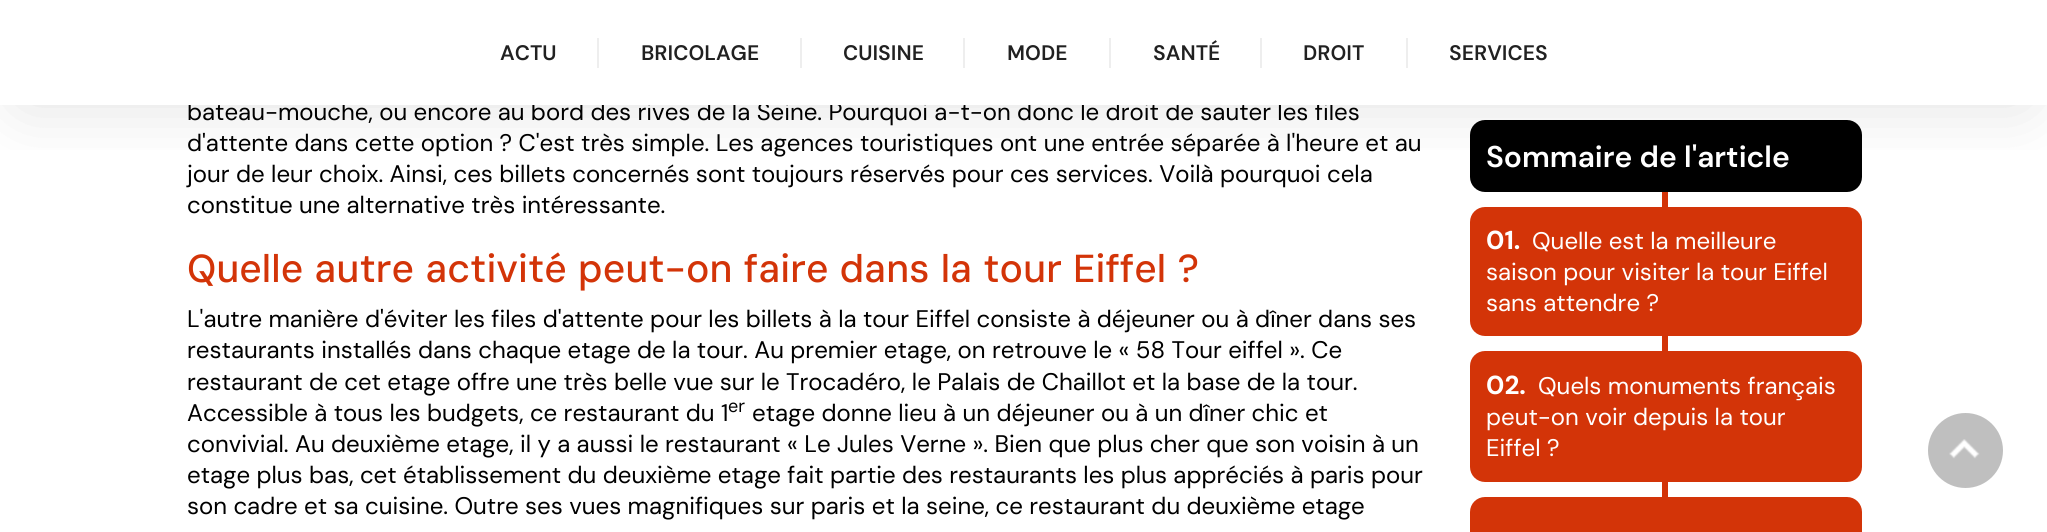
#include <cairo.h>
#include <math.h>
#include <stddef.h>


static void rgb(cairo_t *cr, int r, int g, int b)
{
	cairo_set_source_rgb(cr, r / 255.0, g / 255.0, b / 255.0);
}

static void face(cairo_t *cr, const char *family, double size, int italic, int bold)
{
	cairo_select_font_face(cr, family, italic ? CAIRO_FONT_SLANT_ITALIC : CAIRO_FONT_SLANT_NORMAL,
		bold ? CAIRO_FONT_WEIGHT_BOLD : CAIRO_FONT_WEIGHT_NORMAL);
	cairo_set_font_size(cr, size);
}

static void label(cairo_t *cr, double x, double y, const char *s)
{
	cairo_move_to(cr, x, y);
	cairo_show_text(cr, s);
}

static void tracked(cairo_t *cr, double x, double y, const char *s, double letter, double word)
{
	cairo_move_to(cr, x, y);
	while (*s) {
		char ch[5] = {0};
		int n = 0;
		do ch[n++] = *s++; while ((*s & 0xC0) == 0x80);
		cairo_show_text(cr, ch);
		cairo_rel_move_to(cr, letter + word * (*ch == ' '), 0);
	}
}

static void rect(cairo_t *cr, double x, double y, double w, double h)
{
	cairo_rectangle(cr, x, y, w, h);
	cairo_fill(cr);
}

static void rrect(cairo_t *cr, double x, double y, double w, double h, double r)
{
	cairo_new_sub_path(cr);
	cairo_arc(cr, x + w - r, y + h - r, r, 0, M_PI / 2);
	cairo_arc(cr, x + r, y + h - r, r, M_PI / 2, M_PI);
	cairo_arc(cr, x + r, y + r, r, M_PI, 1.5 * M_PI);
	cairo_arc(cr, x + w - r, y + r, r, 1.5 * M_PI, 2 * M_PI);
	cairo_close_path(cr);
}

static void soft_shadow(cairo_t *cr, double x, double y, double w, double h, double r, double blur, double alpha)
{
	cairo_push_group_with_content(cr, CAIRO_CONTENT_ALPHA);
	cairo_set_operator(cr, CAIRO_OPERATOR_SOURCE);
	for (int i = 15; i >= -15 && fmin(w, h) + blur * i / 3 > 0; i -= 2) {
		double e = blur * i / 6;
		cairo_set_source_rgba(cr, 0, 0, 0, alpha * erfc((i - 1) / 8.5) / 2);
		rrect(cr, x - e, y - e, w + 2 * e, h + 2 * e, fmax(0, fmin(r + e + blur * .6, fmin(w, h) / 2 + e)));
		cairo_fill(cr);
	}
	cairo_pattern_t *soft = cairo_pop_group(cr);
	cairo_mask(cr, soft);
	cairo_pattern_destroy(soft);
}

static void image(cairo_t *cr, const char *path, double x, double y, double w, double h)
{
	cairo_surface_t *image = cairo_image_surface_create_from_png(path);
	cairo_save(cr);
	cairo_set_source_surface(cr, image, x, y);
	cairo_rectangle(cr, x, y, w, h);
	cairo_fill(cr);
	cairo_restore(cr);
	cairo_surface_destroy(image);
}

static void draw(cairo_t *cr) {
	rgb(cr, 255, 255, 255);
	cairo_paint(cr);
	face(cr, "DM Sans", 24, 0, 0);
	rgb(cr, 0, 0, 0);
	label(cr, 187, 120, "bateau-mouche, ou encore au bord des rives de la Seine. Pourquoi a-t-on donc le droit de sauter les files");
	rgb(cr, 255, 255, 255);
	rect(cr, 188, 102, 1145, 3);
	rgb(cr, 0, 0, 0);
	rrect(cr, 1471, 121, 390, 70, 14);
	cairo_fill_preserve(cr);
	cairo_stroke(cr);
	rgb(cr, 211, 52, 8);
	rect(cr, 1662, 192, 6, 15);
	cairo_save(cr);
	cairo_rectangle(cr, 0, 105, 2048, 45);
	cairo_clip(cr);
	rgb(cr, 0, 0, 0);
	soft_shadow(cr, 8, 38, 2032, 75, 37.5, 30, 0.1);
	cairo_restore(cr);
	face(cr, "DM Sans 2 SemiBold", 21, 0, 0);
	rgb(cr, 33, 33, 33);
	label(cr, 500, 60, "ACTU");
	rgb(cr, 238, 238, 238);
	rect(cr, 597, 38, 2, 30);
	rgb(cr, 33, 33, 33);
	label(cr, 641, 60, "BRICOLAGE");
	rgb(cr, 238, 238, 238);
	rect(cr, 800, 38, 2, 30);
	rgb(cr, 33, 33, 33);
	label(cr, 843, 60, "CUISINE");
	rgb(cr, 238, 238, 238);
	rect(cr, 963, 38, 2, 30);
	rgb(cr, 33, 33, 33);
	label(cr, 1007, 60, "MODE");
	rgb(cr, 238, 238, 238);
	rect(cr, 1109, 38, 2, 30);
	rgb(cr, 33, 33, 33);
	label(cr, 1153, 60, "SANTÉ");
	rgb(cr, 238, 238, 238);
	rect(cr, 1260, 38, 2, 30);
	rgb(cr, 33, 33, 33);
	label(cr, 1303, 60, "DROIT");
	rgb(cr, 238, 238, 238);
	rect(cr, 1406, 38, 2, 30);
	rgb(cr, 33, 33, 33);
	label(cr, 1449, 60, "SERVICES");
	face(cr, "DM Sans", 24, 0, 0);
	rgb(cr, 0, 0, 0);
	label(cr, 187, 151, "d'attente dans cette option ? C'est très simple. Les agences touristiques ont une entrée séparée à l'heure et au");
	label(cr, 187, 182, "jour de leur choix. Ainsi, ces billets concernés sont toujours réservés pour ces services. Voilà pourquoi cela");
	label(cr, 187, 213, "constitue une alternative très intéressante.");
	face(cr, "DM Sans Medium", 39, 0, 0);
	rgb(cr, 211, 52, 8);
	tracked(cr, 187, 282, "Quelle autre activité peut-on faire dans la tour Eiffel ?", 0, 1);
	face(cr, "DM Sans", 24, 0, 0);
	rgb(cr, 0, 0, 0);
	label(cr, 187, 327, "L'autre manière d'éviter les files d'attente pour les billets à la tour Eiffel consiste à déjeuner ou à dîner dans ses");
	label(cr, 187, 358, "restaurants installés dans chaque etage de la tour. Au premier etage, on retrouve le « 58 Tour eiffel ». Ce");
	label(cr, 187, 390, "restaurant de cet etage offre une très belle vue sur le Trocadéro, le Palais de Chaillot et la base de la tour.");
	label(cr, 187, 421, "Accessible à tous les budgets, ce restaurant du 1");
	face(cr, "DM Sans 2", 18, 0, 0);
	label(cr, 728, 412, "er");
	face(cr, "DM Sans", 24, 0, 0);
	label(cr, 752, 421, "etage donne lieu à un déjeuner ou à un dîner chic et");
	label(cr, 187, 452, "convivial. Au deuxième etage, il y a aussi le restaurant « Le Jules Verne ». Bien que plus cher que son voisin à un");
	label(cr, 187, 483, "etage plus bas, cet établissement du deuxième etage fait partie des restaurants les plus appréciés à paris pour");
	label(cr, 187, 514, "son cadre et sa cuisine. Outre ses vues magnifiques sur paris et la seine, ce restaurant du deuxième etage");
	face(cr, "DM Sans SemiBold", 30, 0, 0);
	rgb(cr, 255, 255, 255);
	label(cr, 1486, 167, "Sommaire de l'article");
	rgb(cr, 211, 52, 8);
	rrect(cr, 1471, 208, 390, 127, 14);
	cairo_fill_preserve(cr);
	cairo_stroke(cr);
	face(cr, "DM Sans", 26, 0, 1);
	rgb(cr, 255, 255, 255);
	label(cr, 1486, 249, "01.");
	face(cr, "DM Sans", 24, 0, 0);
	label(cr, 1532, 249, "Quelle est la meilleure");
	label(cr, 1486, 280, "saison pour visiter la tour Eiffel");
	label(cr, 1486, 311, "sans attendre ?");
	rgb(cr, 211, 52, 8);
	rect(cr, 1662, 336, 6, 15);
	rrect(cr, 1471, 352, 390, 129, 14);
	cairo_fill_preserve(cr);
	cairo_stroke(cr);
	face(cr, "DM Sans", 26, 0, 1);
	rgb(cr, 255, 255, 255);
	label(cr, 1486, 394, "02.");
	face(cr, "DM Sans", 24, 0, 0);
	label(cr, 1538, 394, "Quels monuments français");
	label(cr, 1486, 425, "peut-on voir depuis la tour");
	label(cr, 1486, 456, "Eiffel ?");
	rgb(cr, 211, 52, 8);
	rect(cr, 1662, 482, 6, 15);
	rrect(cr, 1471, 498, 390, 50, 14);
	cairo_fill_preserve(cr);
	cairo_stroke(cr);
	rgb(cr, 191, 191, 191);
	cairo_arc(cr, 1965.5, 450.5, 37.5, 0, 2 * M_PI);
	cairo_fill(cr);
	image(cr, "image0.png", 1949, 439, 31, 20);
}

int main(void) {
	cairo_surface_t *surface = cairo_image_surface_create(CAIRO_FORMAT_RGB24, 2047, 532);
	cairo_t *cr = cairo_create(surface);
	cairo_font_options_t *options = cairo_font_options_create();
	cairo_font_options_set_hint_metrics(options, CAIRO_HINT_METRICS_OFF);
	cairo_font_options_set_hint_style(options, CAIRO_HINT_STYLE_NONE);
	cairo_set_font_options(cr, options);
	cairo_set_miter_limit(cr, 4);
	draw(cr);
	cairo_surface_write_to_png(surface, "render.png");
	cairo_font_options_destroy(options);
	cairo_destroy(cr);
	cairo_surface_destroy(surface);
	return 0;
}
